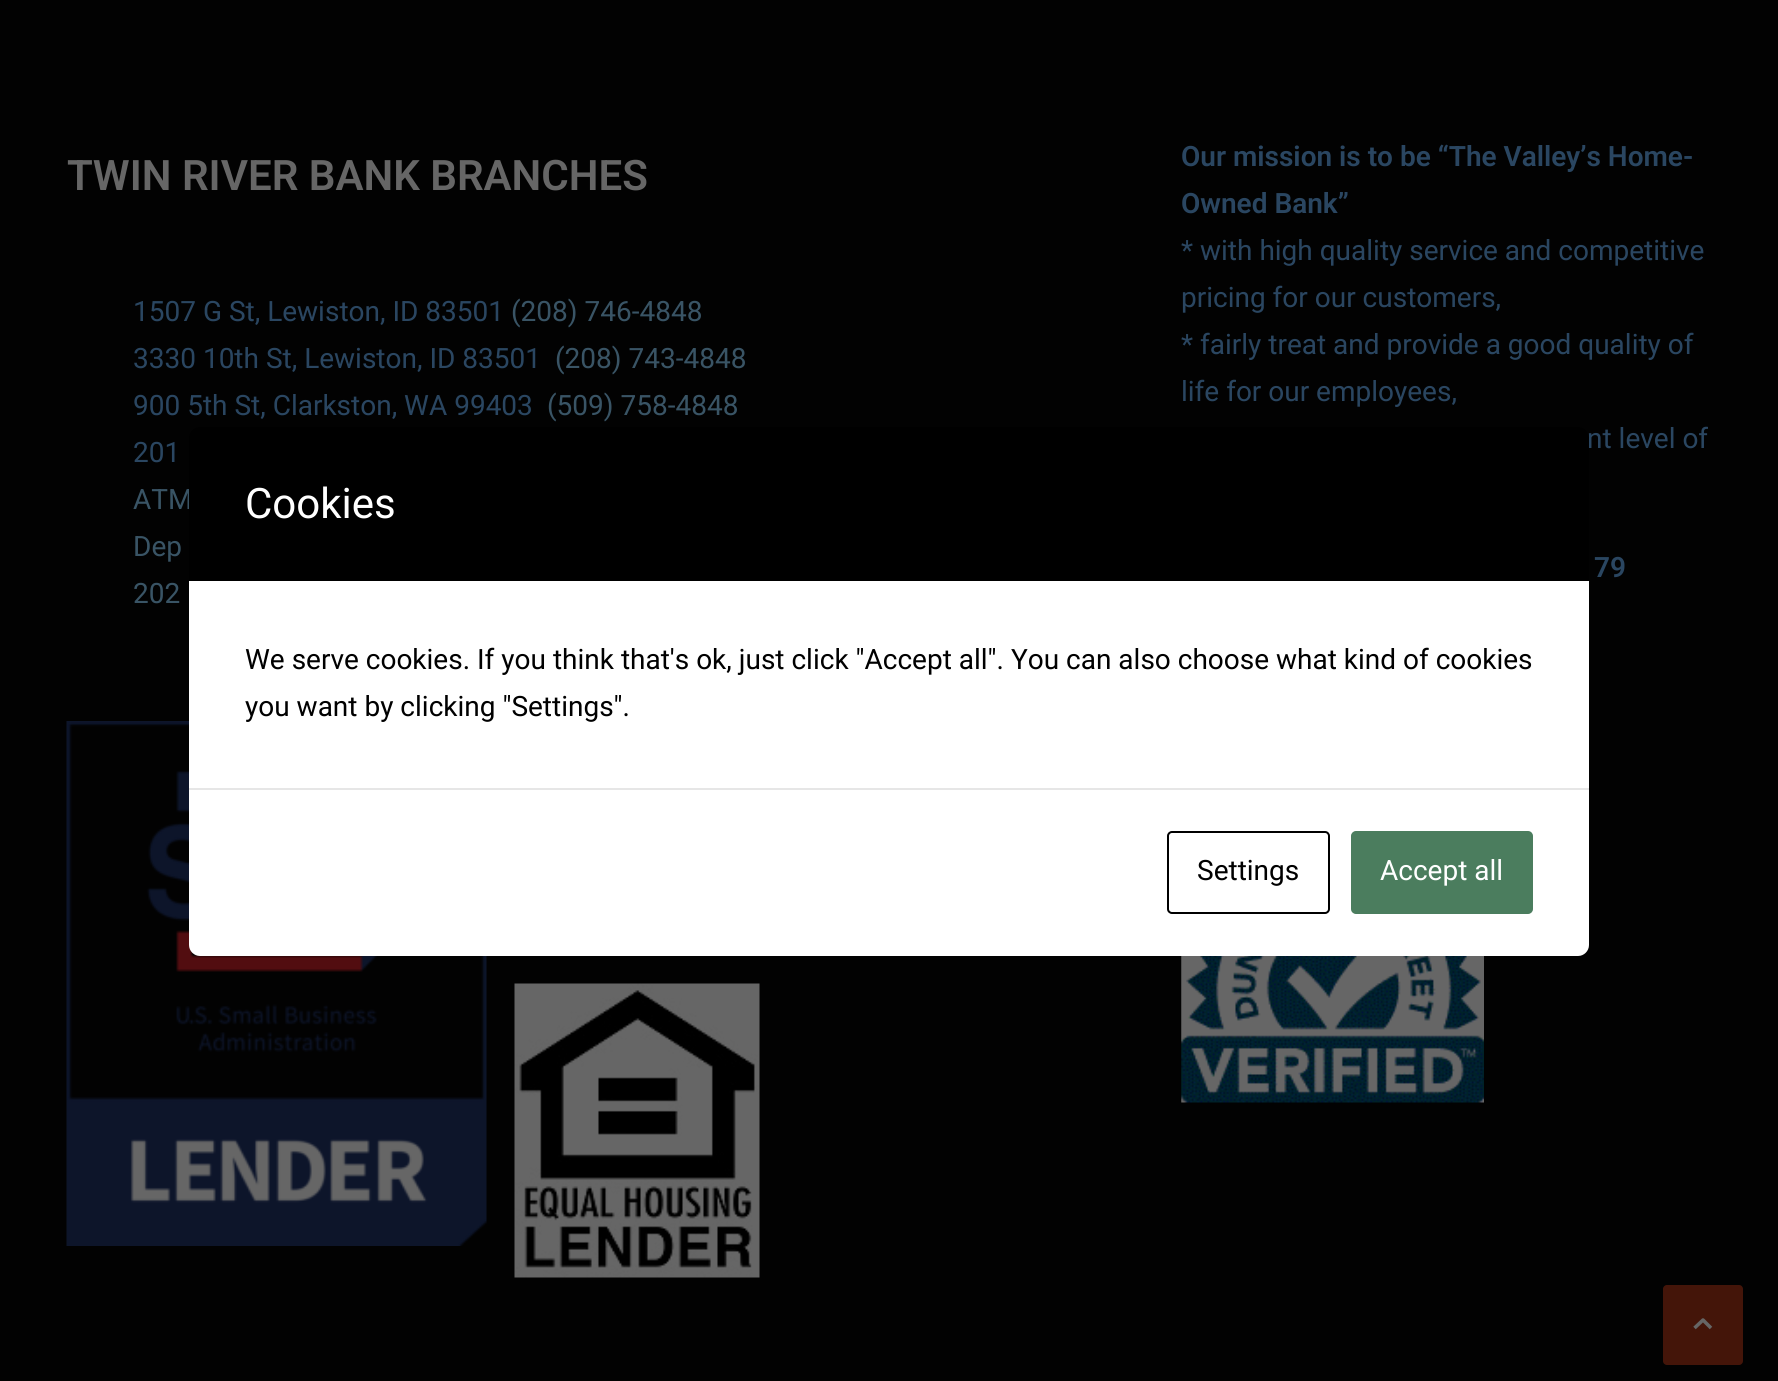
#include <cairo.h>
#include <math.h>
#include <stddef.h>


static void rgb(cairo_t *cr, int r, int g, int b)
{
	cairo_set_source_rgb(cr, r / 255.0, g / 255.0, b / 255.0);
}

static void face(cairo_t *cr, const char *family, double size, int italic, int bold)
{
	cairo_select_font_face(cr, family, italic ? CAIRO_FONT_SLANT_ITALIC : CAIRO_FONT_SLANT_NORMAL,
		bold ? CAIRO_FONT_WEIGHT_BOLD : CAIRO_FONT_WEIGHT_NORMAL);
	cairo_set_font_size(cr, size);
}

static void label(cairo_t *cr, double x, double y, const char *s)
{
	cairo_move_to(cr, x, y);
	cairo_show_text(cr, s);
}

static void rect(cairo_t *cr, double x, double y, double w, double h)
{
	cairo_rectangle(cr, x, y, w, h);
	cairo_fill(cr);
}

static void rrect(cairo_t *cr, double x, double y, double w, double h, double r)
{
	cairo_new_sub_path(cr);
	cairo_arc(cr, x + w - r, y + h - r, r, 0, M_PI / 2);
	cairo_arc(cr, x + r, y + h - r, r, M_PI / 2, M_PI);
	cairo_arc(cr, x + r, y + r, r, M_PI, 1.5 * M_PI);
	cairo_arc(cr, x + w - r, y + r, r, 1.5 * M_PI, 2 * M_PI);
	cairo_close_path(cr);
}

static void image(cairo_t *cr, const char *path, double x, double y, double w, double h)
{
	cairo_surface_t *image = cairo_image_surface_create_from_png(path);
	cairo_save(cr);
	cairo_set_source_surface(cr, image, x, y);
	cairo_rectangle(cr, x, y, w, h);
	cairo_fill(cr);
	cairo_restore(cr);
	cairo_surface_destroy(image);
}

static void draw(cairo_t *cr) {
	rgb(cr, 2, 2, 2);
	cairo_paint(cr);
	face(cr, "Roboto SemiBold", 42, 0, 0);
	rgb(cr, 102, 102, 102);
	label(cr, 67, 190, "TWIN RIVER BANK BRANCHES");
	face(cr, "Roboto", 28, 0, 0);
	rgb(cr, 42, 70, 97);
	label(cr, 133, 321, "1507 G St, Lewiston, ID 83501");
	rgb(cr, 57, 84, 101);
	label(cr, 511, 321, "(208) 746-4848");
	rgb(cr, 42, 70, 97);
	label(cr, 133, 368, "3330 10th St, Lewiston, ID 83501");
	rgb(cr, 57, 84, 101);
	label(cr, 555, 368, "(208) 743-4848");
	rgb(cr, 42, 70, 97);
	label(cr, 133, 415, "900 5th St, Clarkston, WA 99403");
	rgb(cr, 57, 84, 101);
	label(cr, 547, 415, "(509) 758-4848");
	rgb(cr, 42, 70, 97);
	label(cr, 133, 462, "201");
	rgb(cr, 57, 84, 101);
	label(cr, 133, 509, "ATM");
	label(cr, 133, 556, "Dep");
	label(cr, 133, 603, "202");
	image(cr, "image0.png", 66, 721, 421, 525);
	image(cr, "image1.png", 514, 983, 246, 295);
	face(cr, "Roboto SemiBold", 28, 0, 0);
	rgb(cr, 42, 70, 97);
	label(cr, 1181, 166, "Our mission is to be “The Valley’s Home-");
	label(cr, 1181, 213, "Owned Bank”");
	face(cr, "Roboto", 28, 0, 0);
	label(cr, 1181, 260, "* with high quality service and competitive");
	label(cr, 1181, 307, "pricing for our customers,");
	label(cr, 1181, 354, "* fairly treat and provide a good quality of");
	label(cr, 1181, 401, "life for our employees,");
	label(cr, 1587, 448, "nt level of");
	face(cr, "Roboto SemiBold", 28, 0, 0);
	label(cr, 1594, 577, "79");
	image(cr, "image2.png", 1181, 956, 303, 147);
	rgb(cr, 0, 0, 0);
	cairo_new_path(cr);
	cairo_move_to(cr, 200, 427);
	cairo_line_to(cr, 1578, 427);
	cairo_curve_to(cr, 1584, 427, 1589, 432, 1589, 438);
	cairo_line_to(cr, 1589, 581);
	cairo_line_to(cr, 189, 581);
	cairo_line_to(cr, 189, 438);
	cairo_curve_to(cr, 189, 432, 194, 427, 200, 427);
	cairo_close_path(cr);
	cairo_fill(cr);
	face(cr, "Roboto", 42, 0, 0);
	rgb(cr, 255, 255, 255);
	label(cr, 245, 518, "Cookies");
	rect(cr, 189, 581, 1400, 207);
	face(cr, "Roboto", 28, 0, 0);
	rgb(cr, 0, 0, 0);
	label(cr, 245, 669, "We serve cookies. If you think that's ok, just click \"Accept all\". You can also choose what kind of cookies");
	label(cr, 245, 716, "you want by clicking \"Settings\".");
	rgb(cr, 255, 255, 255);
	cairo_new_path(cr);
	cairo_move_to(cr, 189, 788);
	cairo_line_to(cr, 1589, 788);
	cairo_line_to(cr, 1589, 945);
	cairo_curve_to(cr, 1589, 951, 1584, 956, 1578, 956);
	cairo_line_to(cr, 200, 956);
	cairo_curve_to(cr, 194, 956, 189, 951, 189, 945);
	cairo_close_path(cr);
	cairo_fill(cr);
	rgb(cr, 230, 230, 230);
	rect(cr, 189, 788, 1400, 2);
	rrect(cr, 1168, 832, 161, 81, 4);
	rgb(cr, 0, 0, 0);
	cairo_stroke(cr);
	label(cr, 1197, 880, "Settings");
	rgb(cr, 75, 125, 94);
	rrect(cr, 1352, 832, 180, 81, 4);
	cairo_fill_preserve(cr);
	cairo_stroke(cr);
	rgb(cr, 255, 255, 255);
	label(cr, 1380, 880, "Accept all");
	rgb(cr, 68, 21, 9);
	rrect(cr, 1663, 1285, 80, 80, 4);
	cairo_fill(cr);
	cairo_new_path(cr);
	cairo_move_to(cr, 1694.5, 1328);
	cairo_line_to(cr, 1703, 1320);
	cairo_line_to(cr, 1711, 1328);
	rgb(cr, 102, 102, 102);
	cairo_set_line_width(cr, 3.5);
	cairo_set_line_join(cr, CAIRO_LINE_JOIN_ROUND);
	cairo_stroke(cr);
}

int main(void) {
	cairo_surface_t *surface = cairo_image_surface_create(CAIRO_FORMAT_RGB24, 1778, 1381);
	cairo_t *cr = cairo_create(surface);
	cairo_font_options_t *options = cairo_font_options_create();
	cairo_font_options_set_hint_metrics(options, CAIRO_HINT_METRICS_OFF);
	cairo_font_options_set_hint_style(options, CAIRO_HINT_STYLE_NONE);
	cairo_set_font_options(cr, options);
	cairo_set_miter_limit(cr, 4);
	draw(cr);
	cairo_surface_write_to_png(surface, "render.png");
	cairo_font_options_destroy(options);
	cairo_destroy(cr);
	cairo_surface_destroy(surface);
	return 0;
}
